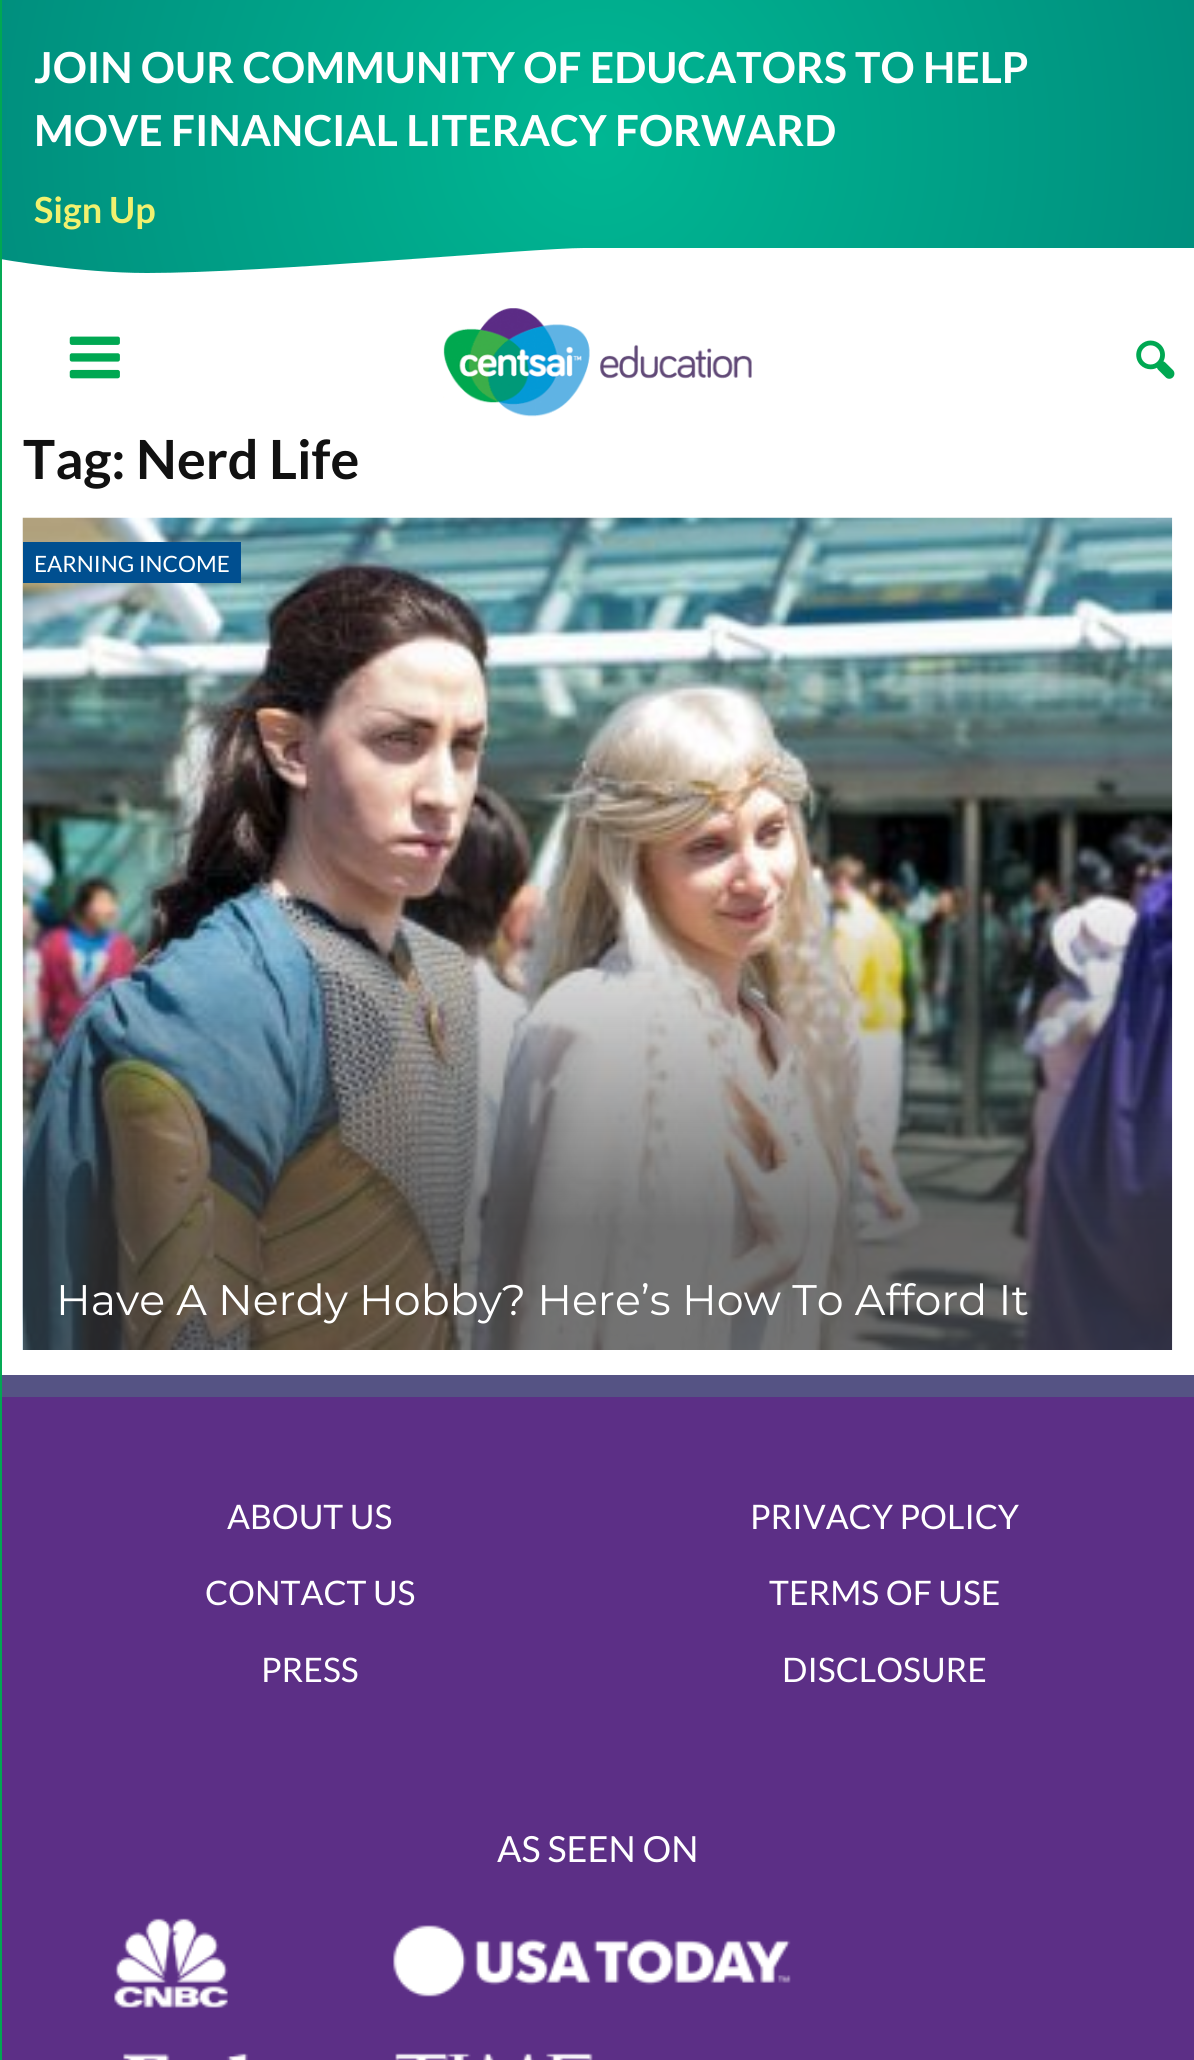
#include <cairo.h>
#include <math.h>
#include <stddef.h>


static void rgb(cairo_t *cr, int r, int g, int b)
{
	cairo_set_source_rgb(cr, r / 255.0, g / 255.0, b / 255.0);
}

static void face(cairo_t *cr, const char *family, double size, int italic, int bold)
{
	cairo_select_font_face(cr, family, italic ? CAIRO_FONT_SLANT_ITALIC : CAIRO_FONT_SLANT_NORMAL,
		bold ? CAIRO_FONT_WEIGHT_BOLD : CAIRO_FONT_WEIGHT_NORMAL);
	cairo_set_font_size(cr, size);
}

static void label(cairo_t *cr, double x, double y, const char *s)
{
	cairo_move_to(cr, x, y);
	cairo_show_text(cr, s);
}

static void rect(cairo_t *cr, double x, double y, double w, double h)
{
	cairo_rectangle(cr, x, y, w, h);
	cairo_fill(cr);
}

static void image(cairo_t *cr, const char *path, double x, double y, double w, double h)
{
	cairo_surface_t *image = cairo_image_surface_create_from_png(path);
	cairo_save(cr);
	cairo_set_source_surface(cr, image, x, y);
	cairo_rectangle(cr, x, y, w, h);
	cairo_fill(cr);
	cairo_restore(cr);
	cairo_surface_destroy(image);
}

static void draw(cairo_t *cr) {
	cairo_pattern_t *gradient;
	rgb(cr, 255, 255, 255);
	cairo_paint(cr);
	gradient = cairo_pattern_create_radial(597, 140, 0, 597, 140, 613);
	cairo_pattern_add_color_stop_rgba(gradient, 0, 0, 0.718, 0.576, 1);
	cairo_pattern_add_color_stop_rgba(gradient, 1, 0, 0.561, 0.494, 1);
	cairo_set_source(cr, gradient);
	cairo_pattern_destroy(gradient);
	rect(cr, 0, 0, 1194, 273);
	rgb(cr, 255, 255, 255);
	cairo_new_path(cr);
	cairo_move_to(cr, 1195, 284);
	cairo_line_to(cr, 0, 284);
	cairo_line_to(cr, 0, 259);
	cairo_curve_to(cr, 0, 259, 79, 273, 147, 273);
	cairo_curve_to(cr, 264, 273, 535, 248, 584, 248);
	cairo_line_to(cr, 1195, 248);
	cairo_close_path(cr);
	cairo_fill(cr);
	rgb(cr, 92, 47, 134);
	rect(cr, 0, 1397, 1194, 663);
	rgb(cr, 85, 83, 132);
	rect(cr, 0, 1375, 1194, 22);
	cairo_set_source_rgba(cr, 0, 0.659, 0.322, 0.98);
	rect(cr, 0, 0, 2, 2060);
	face(cr, "Lato", 42.75, 0, 1);
	rgb(cr, 255, 255, 255);
	label(cr, 34, 83, "JOIN OUR COMMUNITY OF EDUCATORS TO HELP");
	label(cr, 34, 146, "MOVE FINANCIAL LITERACY FORWARD");
	face(cr, "Lato", 36, 0, 1);
	rgb(cr, 241, 241, 111);
	label(cr, 34, 223, "Sign Up");
	image(cr, "image0.png", 69, 336, 51, 43);
	image(cr, "image1.png", 443, 308, 309, 109);
	image(cr, "image2.png", 1136, 340, 39, 39);
	face(cr, "Lato", 54, 0, 1);
	rgb(cr, 17, 17, 17);
	label(cr, 23, 479, "Tag: Nerd Life");
	image(cr, "image3.png", 22, 517, 1151, 833);
	rgb(cr, 0, 79, 144);
	rect(cr, 23, 542, 218, 41);
	face(cr, "Lato", 22.5, 0, 0);
	rgb(cr, 255, 255, 255);
	label(cr, 34, 572, "EARNING INCOME");
	face(cr, "Montserrat", 42.75, 0, 0);
	label(cr, 56, 1315, "Have A Nerdy Hobby? Here’s How To Afford It");
	face(cr, "Lato", 33.75, 0, 0);
	label(cr, 227, 1529, "ABOUT US");
	label(cr, 205, 1605, "CONTACT US");
	label(cr, 261, 1682, "PRESS");
	label(cr, 750, 1529, "PRIVACY POLICY");
	label(cr, 769, 1605, "TERMS OF USE");
	label(cr, 782, 1682, "DISCLOSURE");
	face(cr, "Lato", 36, 0, 0);
	label(cr, 497, 1862, "AS SEEN ON");
	image(cr, "image4.png", 114, 1918, 677, 142);
}

int main(void) {
	cairo_surface_t *surface = cairo_image_surface_create(CAIRO_FORMAT_RGB24, 1194, 2060);
	cairo_t *cr = cairo_create(surface);
	cairo_font_options_t *options = cairo_font_options_create();
	cairo_font_options_set_hint_metrics(options, CAIRO_HINT_METRICS_OFF);
	cairo_font_options_set_hint_style(options, CAIRO_HINT_STYLE_NONE);
	cairo_set_font_options(cr, options);
	cairo_set_miter_limit(cr, 4);
	draw(cr);
	cairo_surface_write_to_png(surface, "render.png");
	cairo_font_options_destroy(options);
	cairo_destroy(cr);
	cairo_surface_destroy(surface);
	return 0;
}
